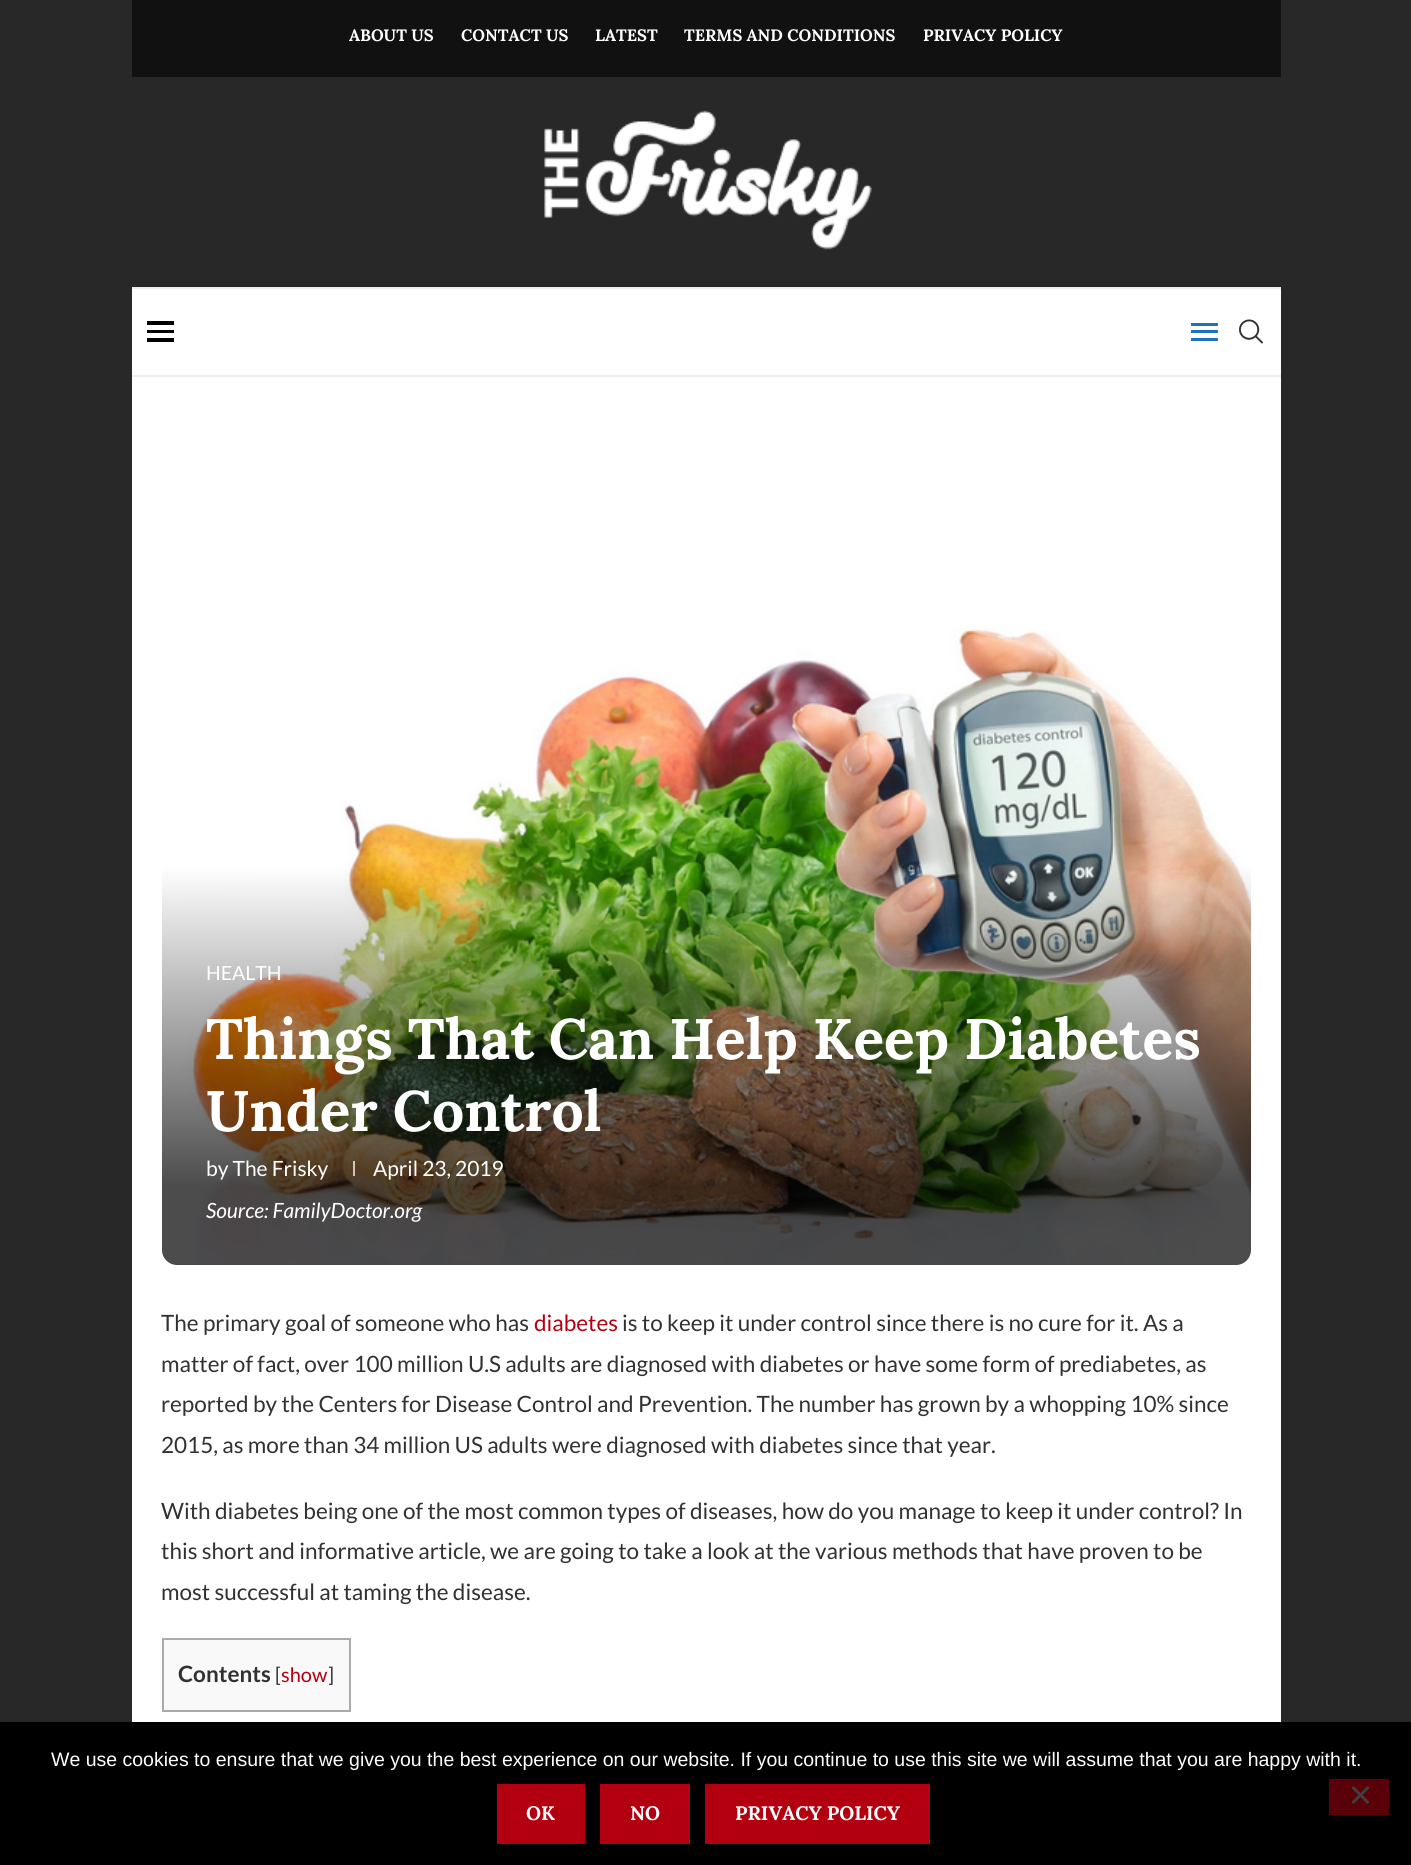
#include <cairo.h>
#include <math.h>
#include <stddef.h>


static void rgb(cairo_t *cr, int r, int g, int b)
{
	cairo_set_source_rgb(cr, r / 255.0, g / 255.0, b / 255.0);
}

static void face(cairo_t *cr, const char *family, double size, int italic, int bold)
{
	cairo_select_font_face(cr, family, italic ? CAIRO_FONT_SLANT_ITALIC : CAIRO_FONT_SLANT_NORMAL,
		bold ? CAIRO_FONT_WEIGHT_BOLD : CAIRO_FONT_WEIGHT_NORMAL);
	cairo_set_font_size(cr, size);
}

static void label(cairo_t *cr, double x, double y, const char *s)
{
	cairo_move_to(cr, x, y);
	cairo_show_text(cr, s);
}

static void rect(cairo_t *cr, double x, double y, double w, double h)
{
	cairo_rectangle(cr, x, y, w, h);
	cairo_fill(cr);
}

static void rrect(cairo_t *cr, double x, double y, double w, double h, double r)
{
	cairo_new_sub_path(cr);
	cairo_arc(cr, x + w - r, y + h - r, r, 0, M_PI / 2);
	cairo_arc(cr, x + r, y + h - r, r, M_PI / 2, M_PI);
	cairo_arc(cr, x + r, y + r, r, M_PI, 1.5 * M_PI);
	cairo_arc(cr, x + w - r, y + r, r, 1.5 * M_PI, 2 * M_PI);
	cairo_close_path(cr);
}

static void image(cairo_t *cr, const char *path, double x, double y, double w, double h)
{
	cairo_surface_t *image = cairo_image_surface_create_from_png(path);
	cairo_save(cr);
	cairo_set_source_surface(cr, image, x, y);
	cairo_rectangle(cr, x, y, w, h);
	cairo_fill(cr);
	cairo_restore(cr);
	cairo_surface_destroy(image);
}

static void draw(cairo_t *cr) {
	cairo_pattern_t *gradient;
	rgb(cr, 40, 40, 40);
	cairo_paint(cr);
	rgb(cr, 255, 255, 255);
	rect(cr, 132, 289, 1149, 1433);
	rgb(cr, 17, 17, 17);
	rect(cr, 132, 0, 1149, 77);
	face(cr, "Lora", 16.5, 0, 1);
	rgb(cr, 255, 255, 255);
	label(cr, 349, 41, "ABOUT US");
	label(cr, 461, 41, "CONTACT US");
	label(cr, 595, 41, "LATEST");
	label(cr, 684, 41, "TERMS AND CONDITIONS");
	label(cr, 923, 41, "PRIVACY POLICY");
	image(cr, "image0.png", 544, 110, 328, 140);
	rgb(cr, 236, 236, 236);
	rect(cr, 132, 287, 1149, 2);
	rect(cr, 132, 375, 1149, 2);
	rgb(cr, 0, 0, 0);
	rect(cr, 147, 321, 27, 4);
	rect(cr, 147, 330, 27, 3);
	rect(cr, 147, 338, 27, 4);
	rgb(cr, 30, 115, 190);
	rect(cr, 1191, 323, 27, 3);
	rect(cr, 1191, 338, 27, 3);
	rect(cr, 1191, 330, 27, 3);
	image(cr, "image1.png", 1239, 319, 24, 25);
	rgb(cr, 245, 245, 245);
	rrect(cr, 162, 467, 1089, 798, 15);
	cairo_fill(cr);
	image(cr, "image2.png", 162, 467, 1089, 797);
	gradient = cairo_pattern_create_linear(706, 466, 707, 1265);
	cairo_pattern_add_color_stop_rgba(gradient, 0.5, 0, 0, 0, 0);
	cairo_pattern_add_color_stop_rgba(gradient, 0.9, 0, 0, 0, 0.7);
	cairo_set_source(cr, gradient);
	cairo_pattern_destroy(gradient);
	rrect(cr, 162, 467, 1089, 798, 15);
	cairo_fill(cr);
	face(cr, "Lato", 19.5, 0, 0);
	rgb(cr, 255, 255, 255);
	label(cr, 206, 980, "HEALTH");
	face(cr, "Lora", 57, 0, 1);
	label(cr, 206, 1059, "Things That Can Help Keep Diabetes");
	label(cr, 206, 1131, "Under Control");
	face(cr, "Lato", 21, 0, 0);
	label(cr, 206, 1176, "by The Frisky");
	cairo_set_source_rgba(cr, 1, 1, 1, 0.7);
	rect(cr, 353, 1161, 2, 15);
	rgb(cr, 255, 255, 255);
	label(cr, 373, 1176, "April 23, 2019");
	face(cr, "Lato", 21, 1, 0);
	label(cr, 206, 1218, "Source: FamilyDoctor.org");
	face(cr, "Lato", 22.5, 0, 0);
	rgb(cr, 49, 49, 49);
	label(cr, 161, 1331, "The primary goal of someone who has");
	rgb(cr, 179, 0, 16);
	label(cr, 534, 1331, "diabetes");
	rgb(cr, 49, 49, 49);
	label(cr, 622, 1331, "is to keep it under control since there is no cure for it. As a");
	label(cr, 161, 1372, "matter of fact, over 100 million U.S adults are diagnosed with diabetes or have some form of prediabetes, as");
	label(cr, 161, 1412, "reported by the Centers for Disease Control and Prevention. The number has grown by a whopping 10% since");
	label(cr, 161, 1453, "2015, as more than 34 million US adults were diagnosed with diabetes since that year.");
	label(cr, 161, 1519, "With diabetes being one of the most common types of diseases, how do you manage to keep it under control? In");
	label(cr, 161, 1559, "this short and informative article, we are going to take a look at the various methods that have proven to be");
	label(cr, 161, 1600, "most successful at taming the disease.");
	rgb(cr, 249, 249, 249);
	cairo_rectangle(cr, 163, 1639, 187, 72);
	cairo_fill_preserve(cr);
	rgb(cr, 170, 170, 170);
	cairo_stroke(cr);
	face(cr, "Lato", 22.5, 0, 1);
	rgb(cr, 49, 49, 49);
	label(cr, 178, 1682, "Contents");
	face(cr, "Lato", 20, 0, 0);
	label(cr, 275, 1682, "[");
	rgb(cr, 179, 0, 16);
	label(cr, 281, 1682, "show");
	rgb(cr, 49, 49, 49);
	label(cr, 328, 1682, "]");
	rgb(cr, 0, 0, 0);
	rect(cr, 0, 1722, 1411, 143);
	face(cr, "Liberation Sans", 19.5, 0, 0);
	rgb(cr, 255, 255, 255);
	label(cr, 51, 1766, "We use cookies to ensure that we give you the best experience on our website. If you continue to use this site we will assume that you are happy with it.");
	rgb(cr, 179, 0, 16);
	rect(cr, 497, 1784, 88, 60);
	face(cr, "Lora", 19.5, 0, 1);
	rgb(cr, 255, 255, 255);
	label(cr, 526, 1820, "OK");
	rgb(cr, 179, 0, 16);
	rect(cr, 600, 1784, 90, 60);
	rgb(cr, 255, 255, 255);
	label(cr, 630, 1820, "NO");
	rgb(cr, 179, 0, 16);
	rect(cr, 705, 1784, 225, 60);
	rgb(cr, 255, 255, 255);
	label(cr, 735, 1820, "PRIVACY POLICY");
	rgb(cr, 90, 0, 8);
	rect(cr, 1329, 1779, 60, 36);
	rgb(cr, 64, 64, 64);
	cairo_new_path(cr);
	cairo_move_to(cr, 1367.5, 1786);
	cairo_line_to(cr, 1369.5, 1788);
	cairo_line_to(cr, 1353.5, 1804);
	cairo_line_to(cr, 1351.5, 1802);
	cairo_close_path(cr);
	cairo_fill(cr);
	cairo_new_path(cr);
	cairo_move_to(cr, 1351.5, 1788);
	cairo_line_to(cr, 1353.5, 1786);
	cairo_line_to(cr, 1369.5, 1802);
	cairo_line_to(cr, 1367.5, 1804);
	cairo_close_path(cr);
	cairo_fill(cr);
}

int main(void) {
	cairo_surface_t *surface = cairo_image_surface_create(CAIRO_FORMAT_RGB24, 1411, 1865);
	cairo_t *cr = cairo_create(surface);
	cairo_font_options_t *options = cairo_font_options_create();
	cairo_font_options_set_hint_metrics(options, CAIRO_HINT_METRICS_OFF);
	cairo_font_options_set_hint_style(options, CAIRO_HINT_STYLE_NONE);
	cairo_set_font_options(cr, options);
	cairo_set_miter_limit(cr, 4);
	draw(cr);
	cairo_surface_write_to_png(surface, "render.png");
	cairo_font_options_destroy(options);
	cairo_destroy(cr);
	cairo_surface_destroy(surface);
	return 0;
}
